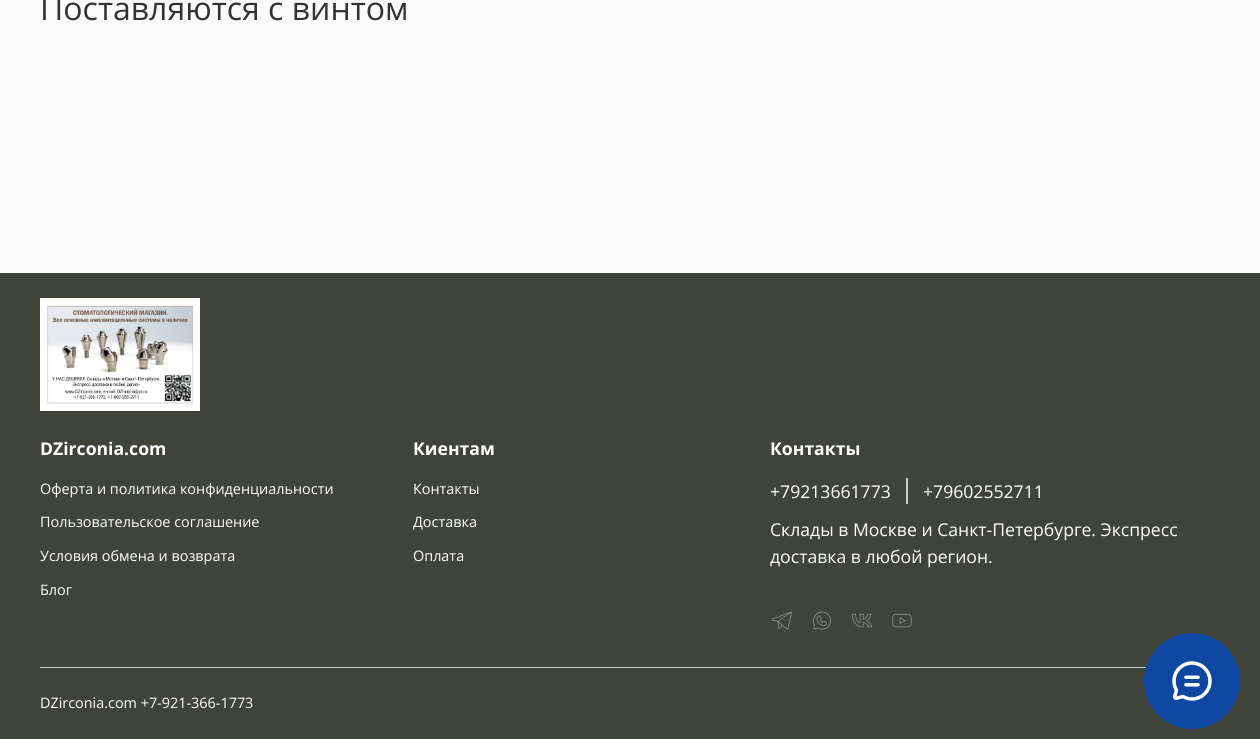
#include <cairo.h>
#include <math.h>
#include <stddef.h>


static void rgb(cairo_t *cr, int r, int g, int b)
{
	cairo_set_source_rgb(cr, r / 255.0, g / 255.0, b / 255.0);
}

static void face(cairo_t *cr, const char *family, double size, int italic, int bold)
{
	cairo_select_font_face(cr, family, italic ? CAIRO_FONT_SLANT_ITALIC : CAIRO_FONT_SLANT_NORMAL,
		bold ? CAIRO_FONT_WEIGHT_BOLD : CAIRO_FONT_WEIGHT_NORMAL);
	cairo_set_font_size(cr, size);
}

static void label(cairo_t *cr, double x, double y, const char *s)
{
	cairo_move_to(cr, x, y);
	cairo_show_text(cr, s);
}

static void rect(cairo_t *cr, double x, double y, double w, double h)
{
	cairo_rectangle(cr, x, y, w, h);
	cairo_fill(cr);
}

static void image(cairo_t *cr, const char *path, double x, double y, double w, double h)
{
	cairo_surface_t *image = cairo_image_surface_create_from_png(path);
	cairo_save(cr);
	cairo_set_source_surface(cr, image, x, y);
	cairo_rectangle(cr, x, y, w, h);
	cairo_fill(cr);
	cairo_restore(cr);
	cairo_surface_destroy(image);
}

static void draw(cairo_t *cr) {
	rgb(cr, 250, 250, 250);
	cairo_paint(cr);
	face(cr, "Open Sans", 32, 0, 0);
	rgb(cr, 51, 51, 51);
	label(cr, 40, 20, "Поставляются с винтом");
	rgb(cr, 63, 67, 57);
	rect(cr, 0, 273, 1260, 466);
	image(cr, "image0.png", 40, 298, 160, 113);
	face(cr, "Open Sans", 17.6, 0, 1);
	rgb(cr, 255, 255, 255);
	label(cr, 40, 455, "DZirconia.com");
	face(cr, "Open Sans", 14.4, 0, 0);
	label(cr, 40, 494, "Оферта и политика конфиденциальности");
	label(cr, 40, 527, "Пользовательское соглашение");
	label(cr, 40, 561, "Условия обмена и возврата");
	label(cr, 40, 595, "Блог");
	face(cr, "Open Sans", 17.6, 0, 1);
	label(cr, 413, 455, "Киентам");
	face(cr, "Open Sans", 14.4, 0, 0);
	label(cr, 413, 494, "Контакты");
	label(cr, 413, 527, "Доставка");
	label(cr, 413, 561, "Оплата");
	face(cr, "Open Sans", 17.6, 0, 1);
	label(cr, 770, 455, "Контакты");
	rgb(cr, 204, 204, 204);
	rect(cr, 906, 478, 2, 26);
	face(cr, "Open Sans", 17.6, 0, 0);
	rgb(cr, 255, 255, 255);
	label(cr, 770, 498, "+79213661773");
	label(cr, 923, 498, "+79602552711");
	label(cr, 770, 536, "Склады в Москве и Санкт-Петербурге. Экспресс");
	label(cr, 770, 563, "доставка в любой регион.");
	image(cr, "image1.png", 772, 611, 20, 19);
	image(cr, "image2.png", 813, 611, 18, 19);
	image(cr, "image3.png", 851, 613, 21, 15);
	image(cr, "image4.png", 892, 613, 20, 15);
	rgb(cr, 204, 204, 204);
	rect(cr, 40, 667, 1107, 1);
	face(cr, "Open Sans", 14.4, 0, 0);
	rgb(cr, 255, 255, 255);
	label(cr, 40, 708, "DZirconia.com +7-921-366-1773");
	rgb(cr, 13, 71, 161);
	cairo_new_path(cr);
	cairo_arc(cr, 1192, 681, 48, 0, 2 * M_PI);
	cairo_fill(cr);
	image(cr, "image5.png", 1172, 661, 40, 40);
}

int main(void) {
	cairo_surface_t *surface = cairo_image_surface_create(CAIRO_FORMAT_RGB24, 1260, 739);
	cairo_t *cr = cairo_create(surface);
	cairo_font_options_t *options = cairo_font_options_create();
	cairo_font_options_set_hint_metrics(options, CAIRO_HINT_METRICS_OFF);
	cairo_font_options_set_hint_style(options, CAIRO_HINT_STYLE_NONE);
	cairo_set_font_options(cr, options);
	cairo_set_miter_limit(cr, 4);
	draw(cr);
	cairo_surface_write_to_png(surface, "render.png");
	cairo_font_options_destroy(options);
	cairo_destroy(cr);
	cairo_surface_destroy(surface);
	return 0;
}
